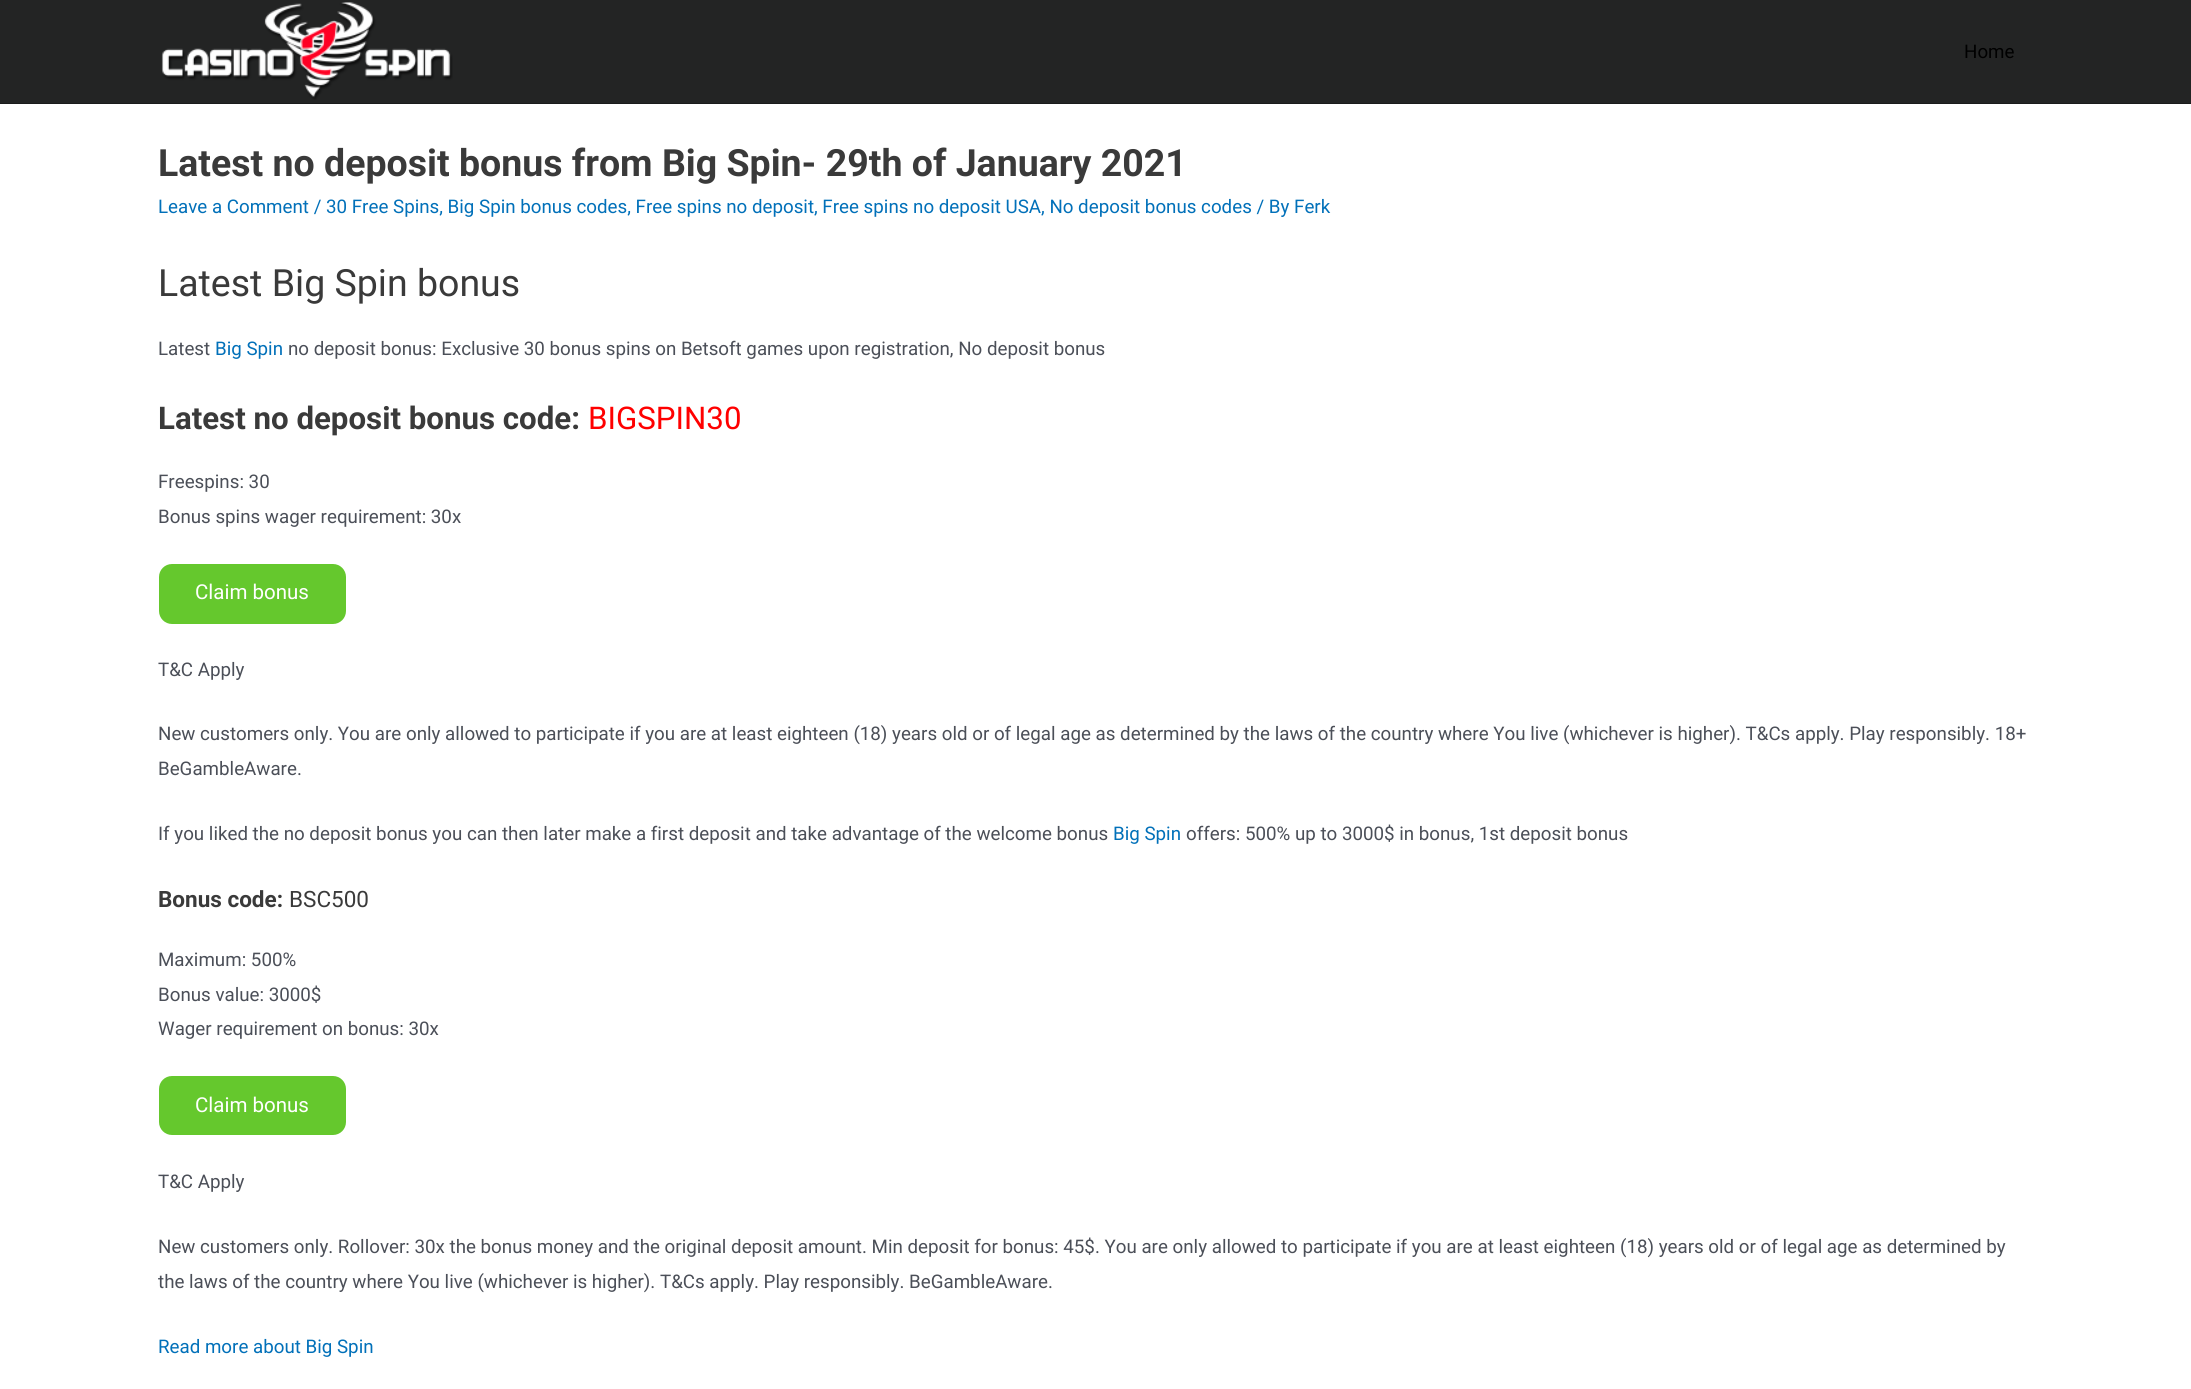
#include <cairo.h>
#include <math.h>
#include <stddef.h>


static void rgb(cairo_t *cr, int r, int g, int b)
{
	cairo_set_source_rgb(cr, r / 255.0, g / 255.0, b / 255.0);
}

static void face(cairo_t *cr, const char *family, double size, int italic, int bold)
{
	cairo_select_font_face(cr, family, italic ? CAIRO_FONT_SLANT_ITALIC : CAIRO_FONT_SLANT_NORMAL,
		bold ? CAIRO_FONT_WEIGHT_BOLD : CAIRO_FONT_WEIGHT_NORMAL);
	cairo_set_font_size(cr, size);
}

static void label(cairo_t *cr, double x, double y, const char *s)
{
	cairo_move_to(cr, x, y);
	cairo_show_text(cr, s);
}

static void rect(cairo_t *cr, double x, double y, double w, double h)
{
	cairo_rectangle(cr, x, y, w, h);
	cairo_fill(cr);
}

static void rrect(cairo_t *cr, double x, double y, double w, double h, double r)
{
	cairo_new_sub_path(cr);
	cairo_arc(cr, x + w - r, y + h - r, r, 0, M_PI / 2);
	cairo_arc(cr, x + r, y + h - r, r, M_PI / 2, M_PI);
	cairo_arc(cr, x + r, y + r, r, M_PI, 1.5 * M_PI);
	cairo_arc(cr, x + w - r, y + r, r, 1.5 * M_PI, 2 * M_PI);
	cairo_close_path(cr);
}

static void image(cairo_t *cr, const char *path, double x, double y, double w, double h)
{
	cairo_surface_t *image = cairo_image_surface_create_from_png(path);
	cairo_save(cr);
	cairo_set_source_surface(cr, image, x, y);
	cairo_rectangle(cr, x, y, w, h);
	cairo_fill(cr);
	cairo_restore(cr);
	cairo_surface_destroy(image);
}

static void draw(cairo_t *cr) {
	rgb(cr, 255, 255, 255);
	cairo_paint(cr);
	rgb(cr, 35, 36, 36);
	rect(cr, 0, 0, 2191, 103);
	rgb(cr, 26, 27, 27);
	rect(cr, 0, 103, 2191, 1);
	image(cr, "image0.png", 161, 2, 292, 98);
	face(cr, "Roboto", 18.75, 0, 0);
	rgb(cr, 0, 0, 0);
	label(cr, 1964, 58, "Home");
	face(cr, "Roboto", 37.5, 0, 1);
	rgb(cr, 58, 58, 58);
	label(cr, 158, 176, "Latest no deposit bonus from Big Spin- 29th of January 2021");
	face(cr, "Roboto", 18.75, 0, 0);
	rgb(cr, 1, 112, 185);
	label(cr, 158, 213, "Leave a Comment / 30 Free Spins, Big Spin bonus codes, Free spins no deposit, Free spins no deposit USA, No deposit bonus codes / By Ferk");
	face(cr, "Roboto", 37.5, 0, 0);
	rgb(cr, 58, 58, 58);
	label(cr, 158, 296, "Latest Big Spin bonus");
	face(cr, "Roboto", 18.75, 0, 0);
	rgb(cr, 75, 79, 88);
	label(cr, 158, 355, "Latest");
	rgb(cr, 1, 112, 185);
	label(cr, 215, 355, "Big Spin");
	rgb(cr, 75, 79, 88);
	label(cr, 288, 355, "no deposit bonus: Exclusive 30 bonus spins on Betsoft games upon registration, No deposit bonus");
	face(cr, "Roboto", 31.25, 0, 1);
	rgb(cr, 58, 58, 58);
	label(cr, 158, 429, "Latest no deposit bonus code:");
	face(cr, "Roboto", 31.25, 0, 0);
	rgb(cr, 255, 0, 0);
	label(cr, 588, 429, "BIGSPIN30");
	face(cr, "Roboto", 18.75, 0, 0);
	rgb(cr, 75, 79, 88);
	label(cr, 158, 488, "Freespins: 30");
	label(cr, 158, 523, "Bonus spins wager requirement: 30x");
	rgb(cr, 101, 200, 45);
	rrect(cr, 159, 564, 187, 60, 13);
	cairo_fill(cr);
	face(cr, "Roboto", 20.5, 0, 0);
	rgb(cr, 255, 255, 255);
	label(cr, 195, 599, "Claim bonus");
	face(cr, "Roboto", 18.75, 0, 0);
	rgb(cr, 75, 79, 88);
	label(cr, 158, 676, "T&C Apply");
	label(cr, 158, 740, "New customers only. You are only allowed to participate if you are at least eighteen (18) years old or of legal age as determined by the laws of the country where You live (whichever is higher). T&Cs apply. Play responsibly. 18+");
	label(cr, 158, 775, "BeGambleAware.");
	label(cr, 158, 840, "If you liked the no deposit bonus you can then later make a first deposit and take advantage of the welcome bonus");
	rgb(cr, 1, 112, 185);
	label(cr, 1113, 840, "Big Spin");
	rgb(cr, 75, 79, 88);
	label(cr, 1186, 840, "offers: 500% up to 3000$ in bonus, 1st deposit bonus");
	face(cr, "Roboto", 22.5, 0, 1);
	rgb(cr, 58, 58, 58);
	label(cr, 158, 907, "Bonus code:");
	face(cr, "Roboto", 22.5, 0, 0);
	label(cr, 289, 907, "BSC500");
	face(cr, "Roboto", 18.75, 0, 0);
	rgb(cr, 75, 79, 88);
	label(cr, 158, 966, "Maximum: 500%");
	label(cr, 158, 1001, "Bonus value: 3000$");
	label(cr, 158, 1035, "Wager requirement on bonus: 30x");
	rgb(cr, 101, 200, 45);
	rrect(cr, 159, 1076, 187, 59, 13);
	cairo_fill(cr);
	face(cr, "Roboto", 20.5, 0, 0);
	rgb(cr, 255, 255, 255);
	label(cr, 195, 1112, "Claim bonus");
	face(cr, "Roboto", 18.75, 0, 0);
	rgb(cr, 75, 79, 88);
	label(cr, 158, 1188, "T&C Apply");
	label(cr, 158, 1253, "New customers only. Rollover: 30x the bonus money and the original deposit amount. Min deposit for bonus: 45$. You are only allowed to participate if you are at least eighteen (18) years old or of legal age as determined by");
	label(cr, 158, 1288, "the laws of the country where You live (whichever is higher). T&Cs apply. Play responsibly. BeGambleAware.");
	rgb(cr, 1, 112, 185);
	label(cr, 158, 1353, "Read more about Big Spin");
}

int main(void) {
	cairo_surface_t *surface = cairo_image_surface_create(CAIRO_FORMAT_RGB24, 2191, 1389);
	cairo_t *cr = cairo_create(surface);
	cairo_font_options_t *options = cairo_font_options_create();
	cairo_font_options_set_hint_metrics(options, CAIRO_HINT_METRICS_OFF);
	cairo_font_options_set_hint_style(options, CAIRO_HINT_STYLE_NONE);
	cairo_set_font_options(cr, options);
	cairo_set_miter_limit(cr, 4);
	draw(cr);
	cairo_surface_write_to_png(surface, "render.png");
	cairo_font_options_destroy(options);
	cairo_destroy(cr);
	cairo_surface_destroy(surface);
	return 0;
}
